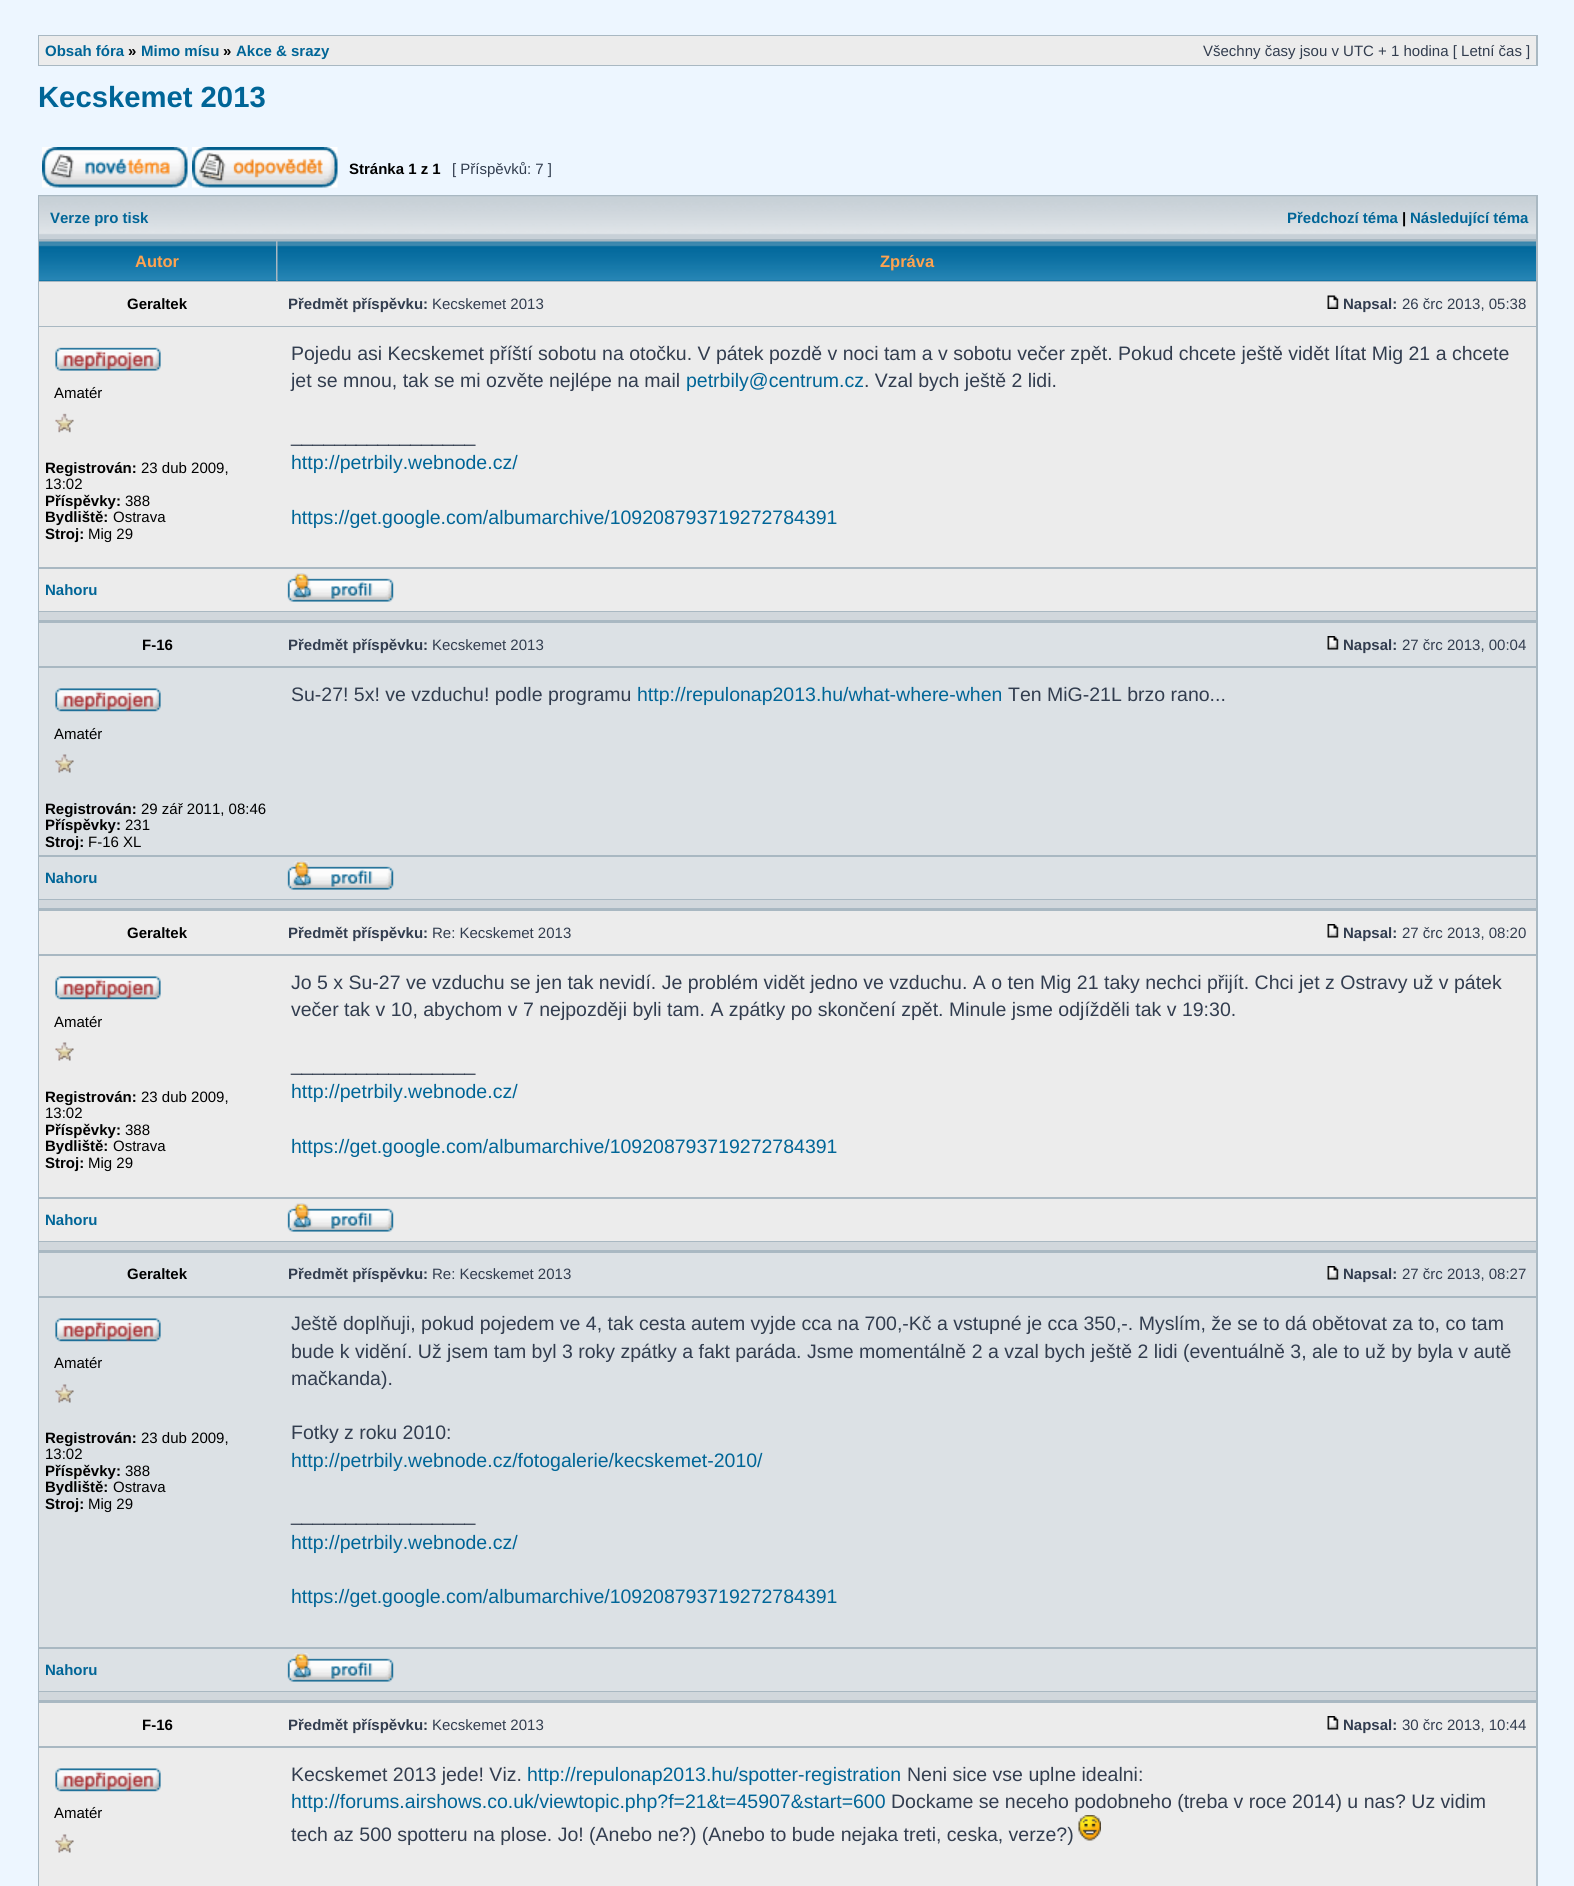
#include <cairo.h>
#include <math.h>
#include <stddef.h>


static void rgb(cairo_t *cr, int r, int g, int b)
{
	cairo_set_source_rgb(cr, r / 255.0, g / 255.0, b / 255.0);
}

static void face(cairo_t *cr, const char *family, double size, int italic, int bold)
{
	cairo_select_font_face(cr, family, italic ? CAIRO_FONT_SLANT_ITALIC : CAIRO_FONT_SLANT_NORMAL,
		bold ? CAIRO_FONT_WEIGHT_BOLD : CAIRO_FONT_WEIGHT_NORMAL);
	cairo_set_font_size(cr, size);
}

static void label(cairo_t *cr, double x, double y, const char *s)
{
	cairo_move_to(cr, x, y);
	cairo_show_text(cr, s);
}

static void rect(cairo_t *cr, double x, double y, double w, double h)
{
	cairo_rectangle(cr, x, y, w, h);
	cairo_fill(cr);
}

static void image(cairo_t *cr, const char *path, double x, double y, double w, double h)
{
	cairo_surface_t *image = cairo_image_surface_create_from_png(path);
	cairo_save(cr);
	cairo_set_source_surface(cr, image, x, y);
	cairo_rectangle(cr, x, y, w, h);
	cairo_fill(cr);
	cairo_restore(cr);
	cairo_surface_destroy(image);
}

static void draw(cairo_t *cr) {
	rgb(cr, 237, 246, 255);
	cairo_paint(cr);
	rgb(cr, 169, 184, 194);
	rect(cr, 38, 35, 1500, 31);
	rgb(cr, 236, 236, 236);
	rect(cr, 39, 36, 1497, 29);
	face(cr, "Liberation Sans", 15, 0, 1);
	rgb(cr, 0, 101, 151);
	label(cr, 45, 56, "Obsah fóra");
	rgb(cr, 0, 0, 0);
	label(cr, 128, 56, "»");
	rgb(cr, 0, 101, 151);
	label(cr, 141, 56, "Mimo mísu");
	rgb(cr, 0, 0, 0);
	label(cr, 223, 56, "»");
	rgb(cr, 0, 101, 151);
	label(cr, 236, 56, "Akce & srazy");
	face(cr, "Liberation Sans", 15, 0, 0);
	rgb(cr, 50, 61, 79);
	label(cr, 1203, 56, "Všechny časy jsou v UTC + 1 hodina [ Letní čas ]");
	face(cr, "Liberation Sans", 29.25, 0, 1);
	rgb(cr, 0, 101, 151);
	label(cr, 38, 107, "Kecskemet 2013");
	image(cr, "image0.png", 42, 147, 146, 41);
	image(cr, "image1.png", 192, 147, 146, 41);
	face(cr, "Liberation Sans", 15, 0, 1);
	rgb(cr, 0, 0, 0);
	label(cr, 349, 174, "Stránka 1 z 1");
	face(cr, "Liberation Sans", 15, 0, 0);
	rgb(cr, 50, 61, 79);
	label(cr, 452, 174, "[ Příspěvků: 7 ]");
	rgb(cr, 169, 184, 194);
	rect(cr, 38, 195, 1500, 1691);
	rgb(cr, 199, 208, 215);
	rect(cr, 39, 235, 1497, 4);
	image(cr, "image2.png", 39, 196, 1497, 39);
	face(cr, "Liberation Sans", 15, 0, 1);
	rgb(cr, 0, 101, 151);
	label(cr, 50, 223, "Verze pro tisk");
	label(cr, 1287, 223, "Předchozí téma");
	rgb(cr, 0, 0, 0);
	label(cr, 1402, 223, "|");
	rgb(cr, 0, 101, 151);
	label(cr, 1410, 223, "Následující téma");
	rgb(cr, 0, 102, 153);
	rect(cr, 39, 280, 237, 1);
	image(cr, "image3.png", 39, 241, 237, 40);
	face(cr, "Liberation Sans", 16.5, 0, 1);
	rgb(cr, 255, 163, 79);
	label(cr, 135, 267, "Autor");
	rgb(cr, 0, 102, 153);
	rect(cr, 278, 280, 1258, 1);
	image(cr, "image4.png", 277, 241, 1259, 40);
	rgb(cr, 255, 163, 79);
	label(cr, 880, 267, "Zpráva");
	rgb(cr, 236, 236, 236);
	rect(cr, 39, 282, 1497, 44);
	face(cr, "Liberation Sans", 15, 0, 1);
	rgb(cr, 0, 0, 0);
	label(cr, 127, 309, "Geraltek");
	rgb(cr, 50, 61, 79);
	label(cr, 288, 309, "Předmět příspěvku:");
	face(cr, "Liberation Sans", 15, 0, 0);
	label(cr, 432, 309, "Kecskemet 2013");
	image(cr, "image5.png", 1327, 295, 12, 14);
	face(cr, "Liberation Sans", 15, 0, 1);
	label(cr, 1343, 309, "Napsal:");
	face(cr, "Liberation Sans", 15, 0, 0);
	label(cr, 1402, 309, "26 črc 2013, 05:38");
	rgb(cr, 236, 236, 236);
	rect(cr, 39, 327, 1497, 240);
	image(cr, "image6.png", 55, 347, 106, 24);
	rgb(cr, 0, 0, 0);
	label(cr, 54, 398, "Amatér");
	image(cr, "image7.png", 55, 413, 19, 20);
	face(cr, "Liberation Sans", 15, 0, 1);
	label(cr, 45, 473, "Registrován:");
	face(cr, "Liberation Sans", 15, 0, 0);
	label(cr, 141, 473, "23 dub 2009,");
	label(cr, 45, 489, "13:02");
	face(cr, "Liberation Sans", 15, 0, 1);
	label(cr, 45, 506, "Příspěvky:");
	face(cr, "Liberation Sans", 15, 0, 0);
	label(cr, 125, 506, "388");
	face(cr, "Liberation Sans", 15, 0, 1);
	label(cr, 45, 522, "Bydliště:");
	face(cr, "Liberation Sans", 15, 0, 0);
	label(cr, 113, 522, "Ostrava");
	face(cr, "Liberation Sans", 15, 0, 1);
	label(cr, 45, 539, "Stroj:");
	face(cr, "Liberation Sans", 15, 0, 0);
	label(cr, 88, 539, "Mig 29");
	face(cr, "Liberation Sans", 19.5, 0, 0);
	rgb(cr, 50, 61, 79);
	label(cr, 291, 360, "Pojedu asi Kecskemet příští sobotu na otočku. V pátek pozdě v noci tam a v sobotu večer zpět. Pokud chcete ještě vidět lítat Mig 21 a chcete");
	label(cr, 291, 387, "jet se mnou, tak se mi ozvěte nejlépe na mail");
	rgb(cr, 0, 101, 151);
	label(cr, 686, 387, "petrbily@centrum.cz");
	rgb(cr, 50, 61, 79);
	label(cr, 864, 387, ". Vzal bych ještě 2 lidi.");
	label(cr, 291, 442, "_________________");
	rgb(cr, 0, 101, 151);
	label(cr, 291, 469, "http://petrbily.webnode.cz/");
	label(cr, 291, 524, "https://get.google.com/albumarchive/109208793719272784391");
	rgb(cr, 236, 236, 236);
	rect(cr, 39, 569, 1497, 42);
	face(cr, "Liberation Sans", 15, 0, 1);
	rgb(cr, 0, 101, 151);
	label(cr, 45, 595, "Nahoru");
	image(cr, "image8.png", 287, 573, 107, 29);
	rgb(cr, 209, 215, 220);
	rect(cr, 39, 612, 1497, 8);
	rgb(cr, 220, 225, 229);
	rect(cr, 39, 623, 1497, 43);
	rgb(cr, 0, 0, 0);
	label(cr, 142, 650, "F-16");
	rgb(cr, 50, 61, 79);
	label(cr, 288, 650, "Předmět příspěvku:");
	face(cr, "Liberation Sans", 15, 0, 0);
	label(cr, 432, 650, "Kecskemet 2013");
	image(cr, "image9.png", 1327, 636, 12, 14);
	face(cr, "Liberation Sans", 15, 0, 1);
	label(cr, 1343, 650, "Napsal:");
	face(cr, "Liberation Sans", 15, 0, 0);
	label(cr, 1402, 650, "27 črc 2013, 00:04");
	rgb(cr, 220, 225, 229);
	rect(cr, 39, 668, 1497, 187);
	face(cr, "Liberation Sans", 19.5, 0, 0);
	rgb(cr, 50, 61, 79);
	label(cr, 291, 701, "Su-27! 5x! ve vzduchu! podle programu");
	rgb(cr, 0, 101, 151);
	label(cr, 637, 701, "http://repulonap2013.hu/what-where-when");
	rgb(cr, 50, 61, 79);
	label(cr, 1008, 701, "Ten MiG-21L brzo rano...");
	image(cr, "image10.png", 55, 688, 106, 24);
	face(cr, "Liberation Sans", 15, 0, 0);
	rgb(cr, 0, 0, 0);
	label(cr, 54, 739, "Amatér");
	image(cr, "image11.png", 55, 754, 19, 19);
	face(cr, "Liberation Sans", 15, 0, 1);
	label(cr, 45, 814, "Registrován:");
	face(cr, "Liberation Sans", 15, 0, 0);
	label(cr, 141, 814, "29 zář 2011, 08:46");
	face(cr, "Liberation Sans", 15, 0, 1);
	label(cr, 45, 830, "Příspěvky:");
	face(cr, "Liberation Sans", 15, 0, 0);
	label(cr, 125, 830, "231");
	face(cr, "Liberation Sans", 15, 0, 1);
	label(cr, 45, 847, "Stroj:");
	face(cr, "Liberation Sans", 15, 0, 0);
	label(cr, 88, 847, "F-16 XL");
	rgb(cr, 220, 225, 229);
	rect(cr, 39, 857, 1497, 42);
	face(cr, "Liberation Sans", 15, 0, 1);
	rgb(cr, 0, 101, 151);
	label(cr, 45, 883, "Nahoru");
	image(cr, "image12.png", 287, 861, 107, 29);
	rgb(cr, 209, 215, 220);
	rect(cr, 39, 900, 1497, 8);
	rgb(cr, 236, 236, 236);
	rect(cr, 39, 911, 1497, 43);
	rgb(cr, 0, 0, 0);
	label(cr, 127, 938, "Geraltek");
	rgb(cr, 50, 61, 79);
	label(cr, 288, 938, "Předmět příspěvku:");
	face(cr, "Liberation Sans", 15, 0, 0);
	label(cr, 432, 938, "Re: Kecskemet 2013");
	image(cr, "image13.png", 1327, 924, 12, 14);
	face(cr, "Liberation Sans", 15, 0, 1);
	label(cr, 1343, 938, "Napsal:");
	face(cr, "Liberation Sans", 15, 0, 0);
	label(cr, 1402, 938, "27 črc 2013, 08:20");
	rgb(cr, 236, 236, 236);
	rect(cr, 39, 956, 1497, 241);
	image(cr, "image14.png", 55, 976, 106, 24);
	rgb(cr, 0, 0, 0);
	label(cr, 54, 1027, "Amatér");
	image(cr, "image15.png", 55, 1042, 19, 19);
	face(cr, "Liberation Sans", 15, 0, 1);
	label(cr, 45, 1102, "Registrován:");
	face(cr, "Liberation Sans", 15, 0, 0);
	label(cr, 141, 1102, "23 dub 2009,");
	label(cr, 45, 1118, "13:02");
	face(cr, "Liberation Sans", 15, 0, 1);
	label(cr, 45, 1135, "Příspěvky:");
	face(cr, "Liberation Sans", 15, 0, 0);
	label(cr, 125, 1135, "388");
	face(cr, "Liberation Sans", 15, 0, 1);
	label(cr, 45, 1151, "Bydliště:");
	face(cr, "Liberation Sans", 15, 0, 0);
	label(cr, 113, 1151, "Ostrava");
	face(cr, "Liberation Sans", 15, 0, 1);
	label(cr, 45, 1168, "Stroj:");
	face(cr, "Liberation Sans", 15, 0, 0);
	label(cr, 88, 1168, "Mig 29");
	face(cr, "Liberation Sans", 19.5, 0, 0);
	rgb(cr, 50, 61, 79);
	label(cr, 291, 989, "Jo 5 x Su-27 ve vzduchu se jen tak nevidí. Je problém vidět jedno ve vzduchu. A o ten Mig 21 taky nechci přijít. Chci jet z Ostravy už v pátek");
	label(cr, 291, 1016, "večer tak v 10, abychom v 7 nejpozději byli tam. A zpátky po skončení zpět. Minule jsme odjížděli tak v 19:30.");
	label(cr, 291, 1071, "_________________");
	rgb(cr, 0, 101, 151);
	label(cr, 291, 1098, "http://petrbily.webnode.cz/");
	label(cr, 291, 1153, "https://get.google.com/albumarchive/109208793719272784391");
	rgb(cr, 236, 236, 236);
	rect(cr, 39, 1199, 1497, 42);
	face(cr, "Liberation Sans", 15, 0, 1);
	rgb(cr, 0, 101, 151);
	label(cr, 45, 1225, "Nahoru");
	image(cr, "image8.png", 287, 1203, 107, 29);
	rgb(cr, 209, 215, 220);
	rect(cr, 39, 1242, 1497, 8);
	rgb(cr, 220, 225, 229);
	rect(cr, 39, 1253, 1497, 43);
	rgb(cr, 0, 0, 0);
	label(cr, 127, 1279, "Geraltek");
	rgb(cr, 50, 61, 79);
	label(cr, 288, 1279, "Předmět příspěvku:");
	face(cr, "Liberation Sans", 15, 0, 0);
	label(cr, 432, 1279, "Re: Kecskemet 2013");
	image(cr, "image9.png", 1327, 1266, 12, 14);
	face(cr, "Liberation Sans", 15, 0, 1);
	label(cr, 1343, 1279, "Napsal:");
	face(cr, "Liberation Sans", 15, 0, 0);
	label(cr, 1402, 1279, "27 črc 2013, 08:27");
	rgb(cr, 220, 225, 229);
	rect(cr, 39, 1298, 1497, 349);
	image(cr, "image10.png", 55, 1318, 106, 24);
	rgb(cr, 0, 0, 0);
	label(cr, 54, 1368, "Amatér");
	image(cr, "image11.png", 55, 1384, 19, 19);
	face(cr, "Liberation Sans", 15, 0, 1);
	label(cr, 45, 1443, "Registrován:");
	face(cr, "Liberation Sans", 15, 0, 0);
	label(cr, 141, 1443, "23 dub 2009,");
	label(cr, 45, 1459, "13:02");
	face(cr, "Liberation Sans", 15, 0, 1);
	label(cr, 45, 1476, "Příspěvky:");
	face(cr, "Liberation Sans", 15, 0, 0);
	label(cr, 125, 1476, "388");
	face(cr, "Liberation Sans", 15, 0, 1);
	label(cr, 45, 1492, "Bydliště:");
	face(cr, "Liberation Sans", 15, 0, 0);
	label(cr, 113, 1492, "Ostrava");
	face(cr, "Liberation Sans", 15, 0, 1);
	label(cr, 45, 1509, "Stroj:");
	face(cr, "Liberation Sans", 15, 0, 0);
	label(cr, 88, 1509, "Mig 29");
	face(cr, "Liberation Sans", 19.5, 0, 0);
	rgb(cr, 50, 61, 79);
	label(cr, 291, 1330, "Ještě doplňuji, pokud pojedem ve 4, tak cesta autem vyjde cca na 700,-Kč a vstupné je cca 350,-. Myslím, že se to dá obětovat za to, co tam");
	label(cr, 291, 1358, "bude k vidění. Už jsem tam byl 3 roky zpátky a fakt paráda. Jsme momentálně 2 a vzal bych ještě 2 lidi (eventuálně 3, ale to už by byla v autě");
	label(cr, 291, 1385, "mačkanda).");
	label(cr, 291, 1439, "Fotky z roku 2010:");
	rgb(cr, 0, 101, 151);
	label(cr, 291, 1467, "http://petrbily.webnode.cz/fotogalerie/kecskemet-2010/");
	rgb(cr, 50, 61, 79);
	label(cr, 291, 1521, "_________________");
	rgb(cr, 0, 101, 151);
	label(cr, 291, 1549, "http://petrbily.webnode.cz/");
	label(cr, 291, 1603, "https://get.google.com/albumarchive/109208793719272784391");
	rgb(cr, 220, 225, 229);
	rect(cr, 39, 1649, 1497, 42);
	face(cr, "Liberation Sans", 15, 0, 1);
	rgb(cr, 0, 101, 151);
	label(cr, 45, 1675, "Nahoru");
	image(cr, "image12.png", 287, 1653, 107, 29);
	rgb(cr, 209, 215, 220);
	rect(cr, 39, 1692, 1497, 8);
	rgb(cr, 236, 236, 236);
	rect(cr, 39, 1703, 1497, 43);
	rgb(cr, 0, 0, 0);
	label(cr, 142, 1730, "F-16");
	rgb(cr, 50, 61, 79);
	label(cr, 288, 1730, "Předmět příspěvku:");
	face(cr, "Liberation Sans", 15, 0, 0);
	label(cr, 432, 1730, "Kecskemet 2013");
	image(cr, "image13.png", 1327, 1716, 12, 14);
	face(cr, "Liberation Sans", 15, 0, 1);
	label(cr, 1343, 1730, "Napsal:");
	face(cr, "Liberation Sans", 15, 0, 0);
	label(cr, 1402, 1730, "30 črc 2013, 10:44");
	rgb(cr, 236, 236, 236);
	rect(cr, 39, 1748, 1497, 138);
	image(cr, "image14.png", 55, 1768, 106, 24);
	rgb(cr, 0, 0, 0);
	label(cr, 54, 1818, "Amatér");
	image(cr, "image15.png", 55, 1834, 19, 19);
	face(cr, "Liberation Sans", 19.5, 0, 0);
	rgb(cr, 50, 61, 79);
	label(cr, 291, 1781, "Kecskemet 2013 jede! Viz.");
	rgb(cr, 0, 101, 151);
	label(cr, 527, 1781, "http://repulonap2013.hu/spotter-registration");
	rgb(cr, 50, 61, 79);
	label(cr, 907, 1781, "Neni sice vse uplne idealni:");
	rgb(cr, 0, 101, 151);
	label(cr, 291, 1808, "http://forums.airshows.co.uk/viewtopic.php?f=21&t=45907&start=600");
	rgb(cr, 50, 61, 79);
	label(cr, 891, 1808, "Dockame se neceho podobneho (treba v roce 2014) u nas? Uz vidim");
	label(cr, 291, 1841, "tech az 500 spotteru na plose. Jo! (Anebo ne?) (Anebo to bude nejaka treti, ceska, verze?)");
	image(cr, "image16.png", 1078, 1815, 23, 26);
}

int main(void) {
	cairo_surface_t *surface = cairo_image_surface_create(CAIRO_FORMAT_RGB24, 1574, 1886);
	cairo_t *cr = cairo_create(surface);
	cairo_font_options_t *options = cairo_font_options_create();
	cairo_font_options_set_hint_metrics(options, CAIRO_HINT_METRICS_OFF);
	cairo_font_options_set_hint_style(options, CAIRO_HINT_STYLE_NONE);
	cairo_set_font_options(cr, options);
	cairo_set_miter_limit(cr, 4);
	draw(cr);
	cairo_surface_write_to_png(surface, "render.png");
	cairo_font_options_destroy(options);
	cairo_destroy(cr);
	cairo_surface_destroy(surface);
	return 0;
}
